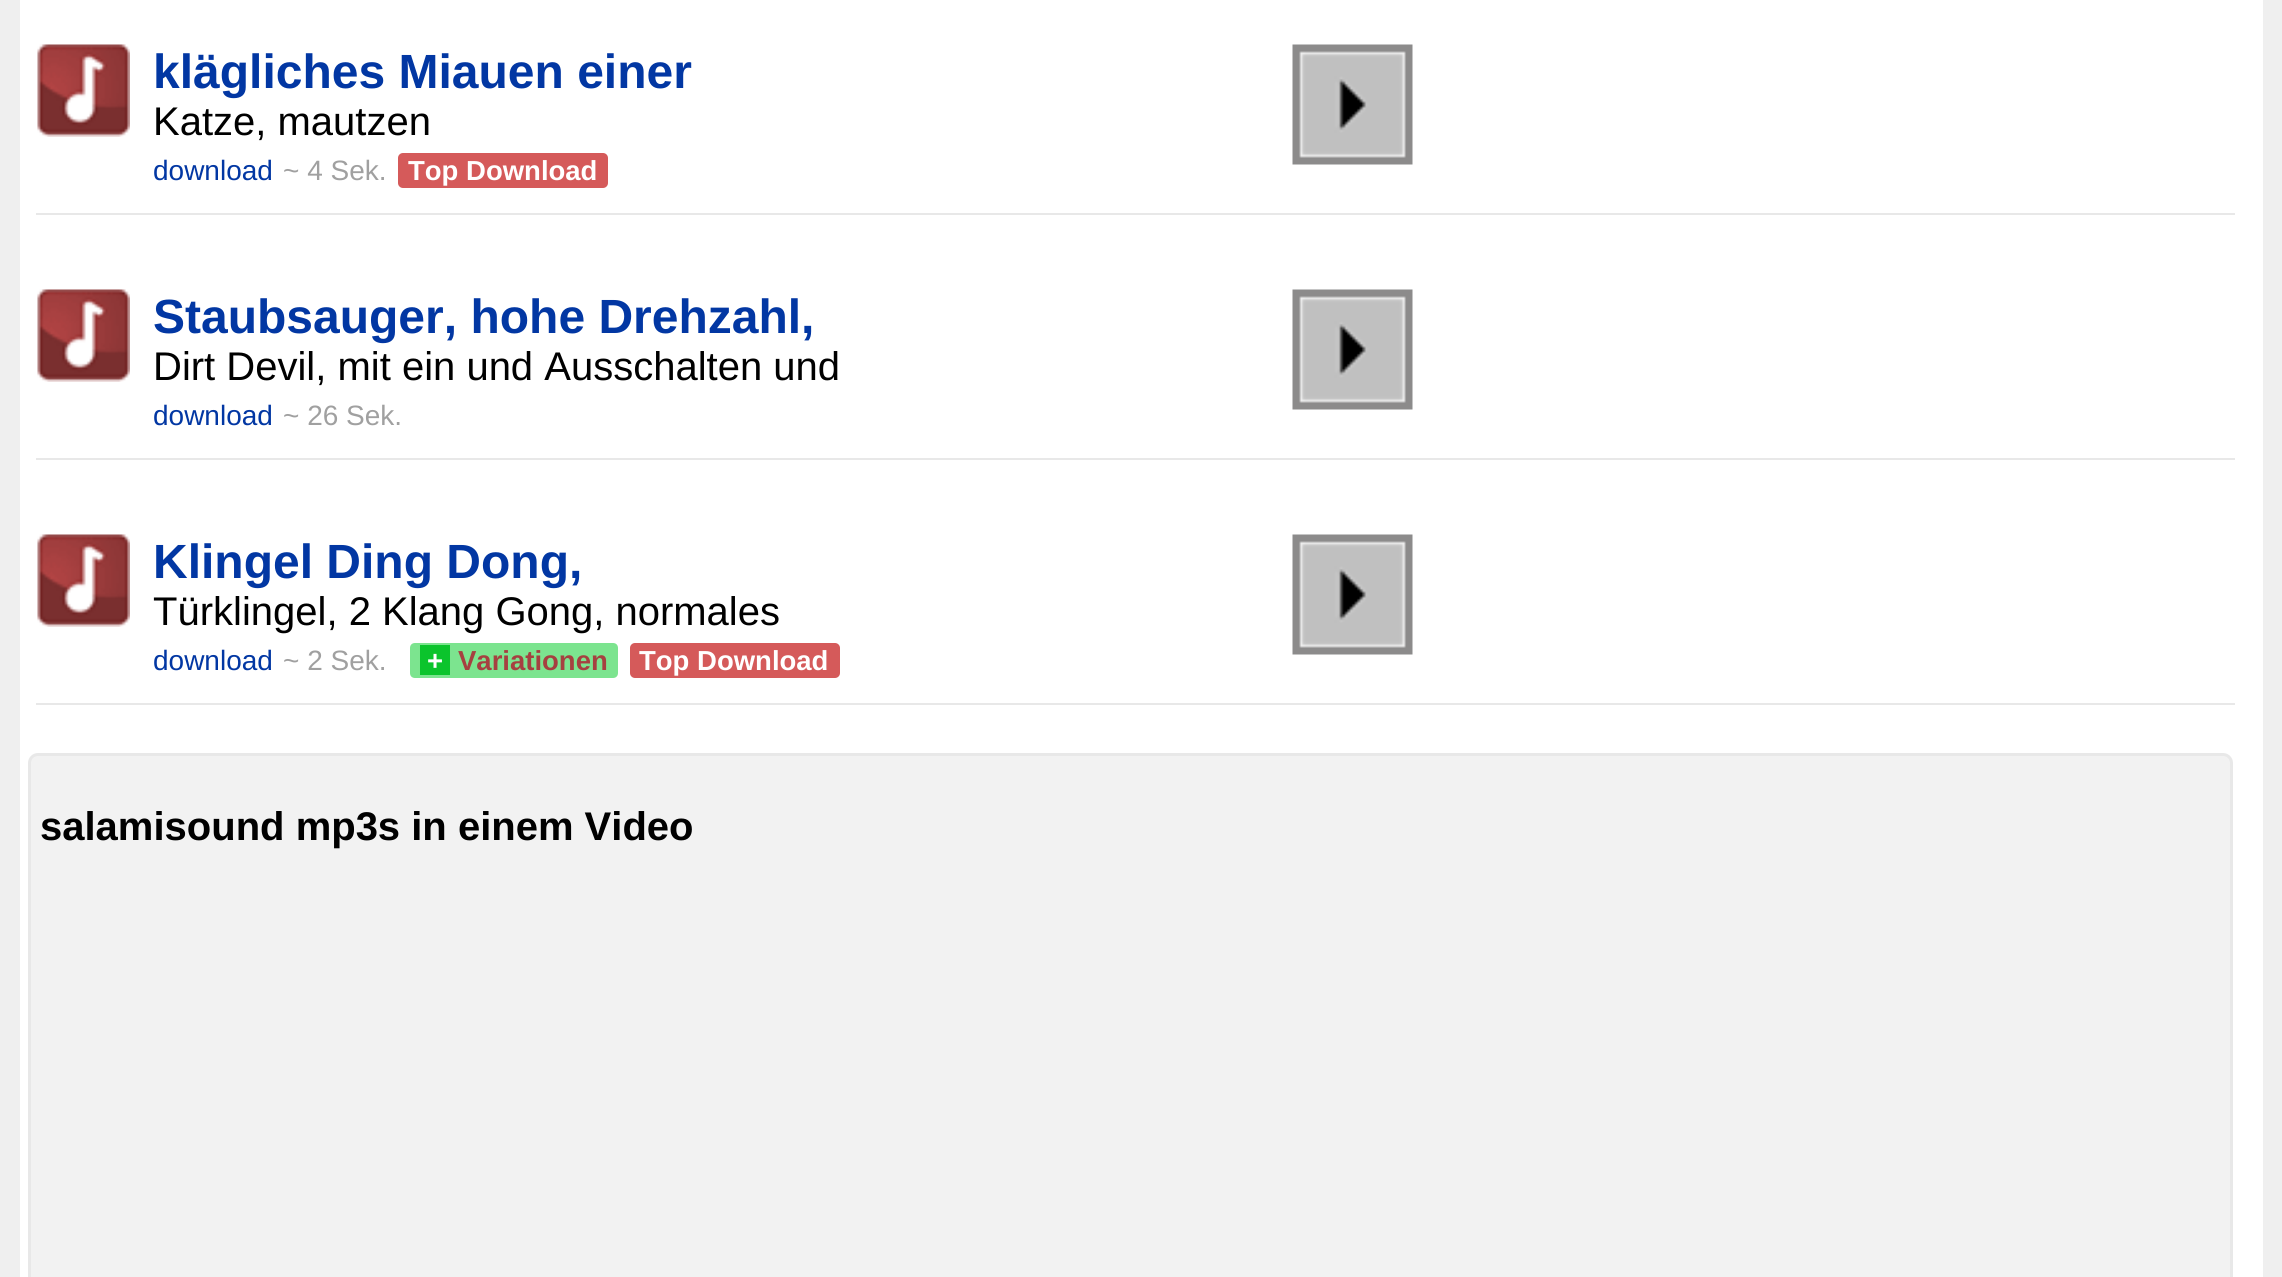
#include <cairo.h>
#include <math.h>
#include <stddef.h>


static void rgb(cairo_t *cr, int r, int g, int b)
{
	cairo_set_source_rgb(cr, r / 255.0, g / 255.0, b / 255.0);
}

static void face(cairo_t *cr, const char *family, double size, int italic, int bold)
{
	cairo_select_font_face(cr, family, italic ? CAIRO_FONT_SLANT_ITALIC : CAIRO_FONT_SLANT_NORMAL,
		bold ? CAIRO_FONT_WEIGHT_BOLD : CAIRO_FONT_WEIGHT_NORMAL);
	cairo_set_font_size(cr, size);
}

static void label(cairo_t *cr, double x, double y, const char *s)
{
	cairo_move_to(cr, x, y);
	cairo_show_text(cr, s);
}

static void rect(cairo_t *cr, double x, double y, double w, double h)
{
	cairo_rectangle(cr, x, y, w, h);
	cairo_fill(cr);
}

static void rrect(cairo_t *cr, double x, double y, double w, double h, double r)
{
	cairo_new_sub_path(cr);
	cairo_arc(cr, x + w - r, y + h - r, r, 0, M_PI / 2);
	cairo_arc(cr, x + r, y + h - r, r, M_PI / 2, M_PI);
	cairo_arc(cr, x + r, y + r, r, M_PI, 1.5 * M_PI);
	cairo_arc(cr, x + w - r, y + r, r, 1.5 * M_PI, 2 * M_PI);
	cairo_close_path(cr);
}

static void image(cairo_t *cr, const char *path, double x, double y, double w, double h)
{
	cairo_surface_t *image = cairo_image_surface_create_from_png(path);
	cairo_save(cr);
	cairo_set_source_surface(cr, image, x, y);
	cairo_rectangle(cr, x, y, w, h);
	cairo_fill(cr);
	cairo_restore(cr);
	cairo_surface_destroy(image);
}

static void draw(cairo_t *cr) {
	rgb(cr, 239, 239, 239);
	cairo_paint(cr);
	rgb(cr, 255, 255, 255);
	rect(cr, 20, 0, 2243, 1277);
	image(cr, "image0.png", 37, 44, 93, 93);
	face(cr, "Liberation Sans", 48, 0, 1);
	rgb(cr, 2, 55, 163);
	label(cr, 153, 88, "klägliches Miauen einer");
	face(cr, "Liberation Sans", 40, 0, 0);
	rgb(cr, 0, 0, 0);
	label(cr, 153, 135, "Katze, mautzen");
	face(cr, "Liberation Sans", 28, 0, 0);
	rgb(cr, 2, 55, 163);
	label(cr, 153, 180, "download");
	rgb(cr, 160, 160, 160);
	label(cr, 283, 180, "~ 4 Sek.");
	rgb(cr, 213, 90, 90);
	rrect(cr, 398, 153, 210, 35, 5);
	cairo_fill(cr);
	face(cr, "Liberation Sans", 27.5, 0, 1);
	rgb(cr, 255, 255, 255);
	label(cr, 408, 180, "Top Download");
	image(cr, "image1.png", 1292, 44, 121, 121);
	rgb(cr, 232, 232, 232);
	cairo_rectangle(cr, 34.5, 211.5, 2202, 5);
	cairo_fill_preserve(cr);
	rgb(cr, 255, 255, 255);
	cairo_set_line_width(cr, 3);
	cairo_stroke(cr);
	image(cr, "image0.png", 37, 289, 93, 93);
	face(cr, "Liberation Sans", 48, 0, 1);
	rgb(cr, 2, 55, 163);
	label(cr, 153, 333, "Staubsauger, hohe Drehzahl,");
	face(cr, "Liberation Sans", 40, 0, 0);
	rgb(cr, 0, 0, 0);
	label(cr, 153, 380, "Dirt Devil, mit ein und Ausschalten und");
	face(cr, "Liberation Sans", 28, 0, 0);
	rgb(cr, 2, 55, 163);
	label(cr, 153, 425, "download");
	rgb(cr, 160, 160, 160);
	label(cr, 283, 425, "~ 26 Sek.");
	image(cr, "image1.png", 1292, 289, 121, 121);
	rgb(cr, 232, 232, 232);
	cairo_rectangle(cr, 34.5, 456.5, 2202, 5);
	cairo_fill_preserve(cr);
	rgb(cr, 255, 255, 255);
	cairo_stroke(cr);
	image(cr, "image0.png", 37, 534, 93, 93);
	face(cr, "Liberation Sans", 48, 0, 1);
	rgb(cr, 2, 55, 163);
	label(cr, 153, 578, "Klingel Ding Dong,");
	face(cr, "Liberation Sans", 40, 0, 0);
	rgb(cr, 0, 0, 0);
	label(cr, 153, 625, "Türklingel, 2 Klang Gong, normales");
	face(cr, "Liberation Sans", 28, 0, 0);
	rgb(cr, 2, 55, 163);
	label(cr, 153, 670, "download");
	rgb(cr, 160, 160, 160);
	label(cr, 283, 670, "~ 2 Sek.");
	rgb(cr, 124, 228, 143);
	rect(cr, 420, 643, 30, 35);
	rgb(cr, 11, 196, 44);
	rect(cr, 420, 645, 30, 30);
	face(cr, "Liberation Sans", 27.5, 0, 1);
	rgb(cr, 255, 255, 255);
	label(cr, 427, 670, "+");
	rgb(cr, 124, 228, 143);
	cairo_new_path(cr);
	cairo_move_to(cr, 415, 643);
	cairo_line_to(cr, 420, 643);
	cairo_line_to(cr, 420, 678);
	cairo_line_to(cr, 415, 678);
	cairo_curve_to(cr, 412, 678, 410, 676, 410, 673);
	cairo_line_to(cr, 410, 648);
	cairo_curve_to(cr, 410, 645, 412, 643, 415, 643);
	cairo_close_path(cr);
	cairo_fill(cr);
	cairo_new_path(cr);
	cairo_move_to(cr, 450, 643);
	cairo_line_to(cr, 613, 643);
	cairo_curve_to(cr, 616, 643, 618, 645, 618, 648);
	cairo_line_to(cr, 618, 673);
	cairo_curve_to(cr, 618, 676, 616, 678, 613, 678);
	cairo_line_to(cr, 450, 678);
	cairo_close_path(cr);
	cairo_fill(cr);
	rgb(cr, 166, 64, 64);
	label(cr, 458, 670, "Variationen");
	rgb(cr, 213, 90, 90);
	rrect(cr, 630, 643, 210, 35, 5);
	cairo_fill(cr);
	rgb(cr, 255, 255, 255);
	label(cr, 639, 670, "Top Download");
	image(cr, "image1.png", 1292, 534, 121, 121);
	rgb(cr, 232, 232, 232);
	cairo_rectangle(cr, 34.5, 701.5, 2202, 5);
	cairo_fill_preserve(cr);
	rgb(cr, 255, 255, 255);
	cairo_stroke(cr);
	rgb(cr, 242, 242, 242);
	rrect(cr, 29.5, 754.5, 2202, 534, 8.5);
	cairo_fill_preserve(cr);
	rgb(cr, 232, 232, 232);
	cairo_stroke(cr);
	face(cr, "Liberation Sans", 40, 0, 1);
	rgb(cr, 0, 0, 0);
	label(cr, 40, 840, "salamisound mp3s in einem Video");
}

int main(void) {
	cairo_surface_t *surface = cairo_image_surface_create(CAIRO_FORMAT_RGB24, 2282, 1277);
	cairo_t *cr = cairo_create(surface);
	cairo_font_options_t *options = cairo_font_options_create();
	cairo_font_options_set_hint_metrics(options, CAIRO_HINT_METRICS_OFF);
	cairo_font_options_set_hint_style(options, CAIRO_HINT_STYLE_NONE);
	cairo_set_font_options(cr, options);
	cairo_set_miter_limit(cr, 4);
	draw(cr);
	cairo_surface_write_to_png(surface, "render.png");
	cairo_font_options_destroy(options);
	cairo_destroy(cr);
	cairo_surface_destroy(surface);
	return 0;
}
